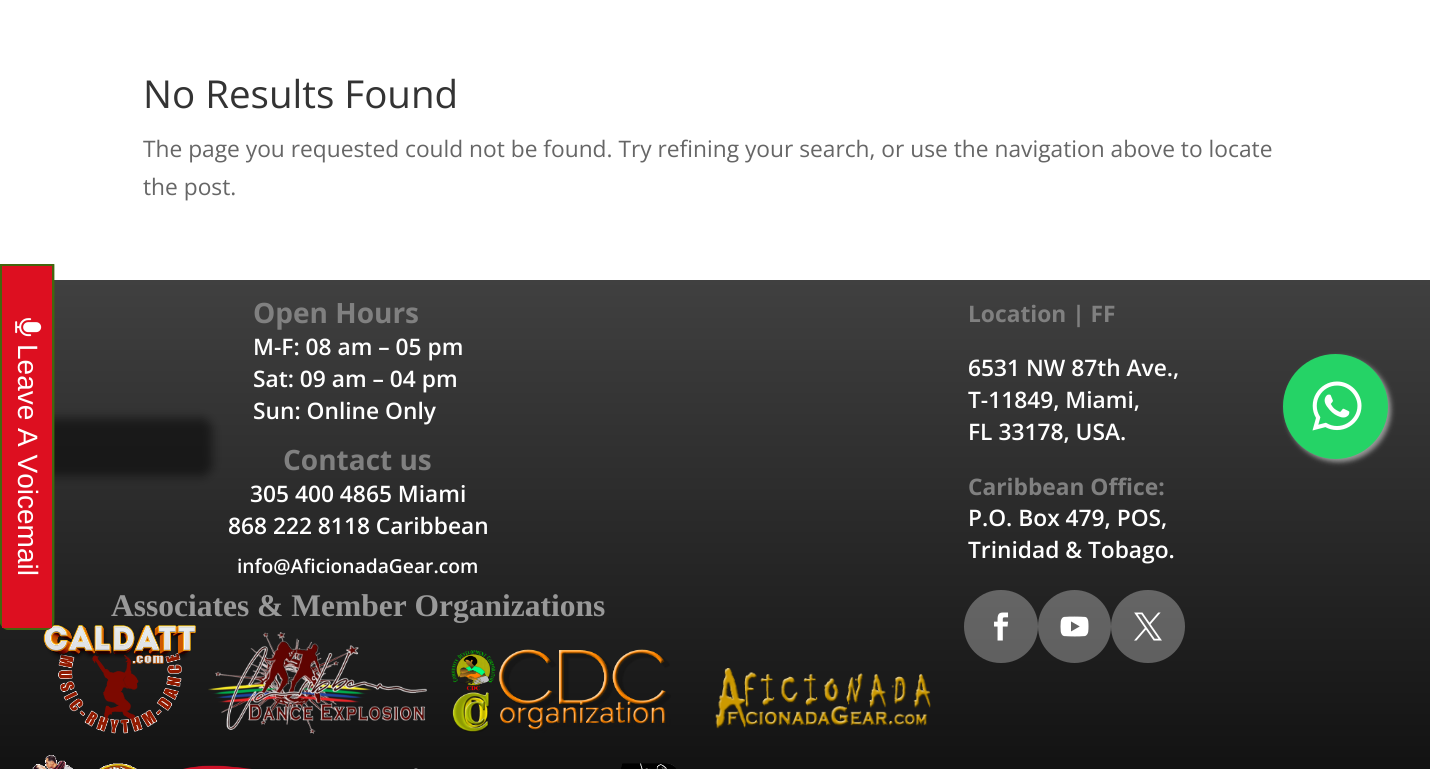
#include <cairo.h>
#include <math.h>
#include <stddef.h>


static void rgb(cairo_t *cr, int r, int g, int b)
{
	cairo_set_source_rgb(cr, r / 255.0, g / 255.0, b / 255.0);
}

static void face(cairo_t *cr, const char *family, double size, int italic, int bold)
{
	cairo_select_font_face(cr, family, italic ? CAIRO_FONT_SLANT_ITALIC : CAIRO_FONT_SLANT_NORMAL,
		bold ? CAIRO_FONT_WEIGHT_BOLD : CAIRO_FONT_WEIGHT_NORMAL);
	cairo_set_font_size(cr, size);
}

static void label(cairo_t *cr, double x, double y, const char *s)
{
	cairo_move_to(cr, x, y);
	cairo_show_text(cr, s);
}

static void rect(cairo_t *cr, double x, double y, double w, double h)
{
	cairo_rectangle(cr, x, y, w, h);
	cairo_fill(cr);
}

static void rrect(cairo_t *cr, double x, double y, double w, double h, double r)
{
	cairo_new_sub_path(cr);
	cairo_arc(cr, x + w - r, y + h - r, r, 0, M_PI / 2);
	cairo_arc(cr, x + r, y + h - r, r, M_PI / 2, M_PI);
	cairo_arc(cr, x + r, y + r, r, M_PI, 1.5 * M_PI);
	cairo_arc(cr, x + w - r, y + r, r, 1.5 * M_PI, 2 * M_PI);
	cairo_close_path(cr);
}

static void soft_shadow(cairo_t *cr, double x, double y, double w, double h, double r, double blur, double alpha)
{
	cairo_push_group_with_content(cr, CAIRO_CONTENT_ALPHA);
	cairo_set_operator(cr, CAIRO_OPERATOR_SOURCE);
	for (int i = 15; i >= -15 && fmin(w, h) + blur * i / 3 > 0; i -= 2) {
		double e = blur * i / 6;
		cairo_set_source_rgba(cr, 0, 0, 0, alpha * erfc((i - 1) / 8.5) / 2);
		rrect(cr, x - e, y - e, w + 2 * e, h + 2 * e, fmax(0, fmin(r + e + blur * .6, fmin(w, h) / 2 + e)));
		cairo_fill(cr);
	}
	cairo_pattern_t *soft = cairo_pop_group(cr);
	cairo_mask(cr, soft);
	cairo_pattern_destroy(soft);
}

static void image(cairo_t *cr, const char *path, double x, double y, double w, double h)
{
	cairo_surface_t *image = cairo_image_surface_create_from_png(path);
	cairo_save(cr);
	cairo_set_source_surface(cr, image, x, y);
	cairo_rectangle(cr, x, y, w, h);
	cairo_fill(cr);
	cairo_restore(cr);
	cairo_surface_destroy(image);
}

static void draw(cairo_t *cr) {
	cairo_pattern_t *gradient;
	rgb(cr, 255, 255, 255);
	cairo_paint(cr);
	gradient = cairo_pattern_create_linear(716, 280, 716, 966);
	cairo_pattern_add_color_stop_rgba(gradient, 0, 0.251, 0.251, 0.251, 1);
	cairo_pattern_add_color_stop_rgba(gradient, 1, 0, 0, 0, 1);
	cairo_set_source(cr, gradient);
	cairo_pattern_destroy(gradient);
	rect(cr, 0, 280, 1430, 489);
	rgb(cr, 0, 0, 0);
	soft_shadow(cr, -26, 418, 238, 58, 11, 5, 0.5);
	image(cr, "image1.png", 43, 625, 153, 109);
	rgb(cr, 67, 102, 14);
	cairo_new_path(cr);
	cairo_move_to(cr, 54, 264);
	cairo_line_to(cr, 54, 621);
	cairo_curve_to(cr, 54, 626, 50, 630, 46, 630);
	cairo_line_to(cr, 9, 630);
	cairo_curve_to(cr, 4, 630, 0, 626, 0, 621);
	cairo_line_to(cr, 0, 264);
	cairo_close_path(cr);
	cairo_fill(cr);
	cairo_new_path(cr);
	cairo_move_to(cr, 53.5, 265);
	cairo_line_to(cr, 53.5, 621.5);
	cairo_curve_to(cr, 53.5, 625.5, 50, 629, 45.5, 629);
	cairo_line_to(cr, 9, 629);
	cairo_curve_to(cr, 4.5, 629, 1, 625.5, 1, 621.5);
	cairo_line_to(cr, 1, 265);
	cairo_close_path(cr);
	cairo_set_line_width(cr, 1.8);
	cairo_stroke(cr);
	rgb(cr, 221, 15, 32);
	rect(cr, 2, 266, 50, 362);
	image(cr, "image0.png", 15, 318, 27, 19);
	face(cr, "Liberation Sans", 28, 0, 0);
	rgb(cr, 255, 255, 255);
	cairo_save(cr);
	cairo_translate(cr, 18, 344);
	cairo_rotate(cr, 90 * M_PI / 180);
	label(cr, 0, 0, "Leave A Voicemail");
	cairo_restore(cr);
	face(cr, "Open Sans", 38.5, 0, 0);
	rgb(cr, 51, 51, 51);
	label(cr, 143, 108, "No Results Found");
	face(cr, "Open Sans", 22.75, 0, 0);
	rgb(cr, 102, 102, 102);
	label(cr, 143, 157, "The page you requested could not be found. Try refining your search, or use the navigation above to locate");
	label(cr, 143, 195, "the post.");
	face(cr, "Open Sans", 28, 0, 1);
	rgb(cr, 128, 128, 128);
	label(cr, 253, 323, "Open Hours");
	face(cr, "Open Sans SemiBold", 22.75, 0, 0);
	rgb(cr, 255, 255, 255);
	label(cr, 253, 355, "M-F: 08 am – 05 pm");
	label(cr, 253, 387, "Sat: 09 am – 04 pm");
	label(cr, 253, 419, "Sun: Online Only");
	face(cr, "Open Sans", 28, 0, 1);
	rgb(cr, 128, 128, 128);
	label(cr, 283, 470, "Contact us");
	face(cr, "Open Sans SemiBold", 22.75, 0, 0);
	rgb(cr, 255, 255, 255);
	label(cr, 250, 502, "305 400 4865 Miami");
	label(cr, 228, 534, "868 222 8118 Caribbean");
	face(cr, "Open Sans SemiBold", 19.25, 0, 0);
	label(cr, 237, 573, "info@AficionadaGear.com");
	face(cr, "Open Sans", 22.75, 0, 1);
	rgb(cr, 128, 128, 128);
	label(cr, 968, 322, "Location | FF");
	face(cr, "Open Sans SemiBold", 22.75, 0, 0);
	rgb(cr, 255, 255, 255);
	label(cr, 968, 376, "6531 NW 87th Ave.,");
	label(cr, 968, 408, "T-11849, Miami,");
	label(cr, 968, 440, "FL 33178, USA.");
	face(cr, "Open Sans", 22.75, 0, 1);
	rgb(cr, 128, 128, 128);
	label(cr, 968, 495, "Caribbean Office:");
	face(cr, "Open Sans SemiBold", 22.75, 0, 0);
	rgb(cr, 255, 255, 255);
	label(cr, 968, 526, "P.O. Box 479, POS,");
	label(cr, 968, 558, "Trinidad & Tobago.");
	face(cr, "Liberation Serif", 31.5, 0, 1);
	rgb(cr, 153, 153, 153);
	label(cr, 111, 616, "Associates & Member Organizations");
	image(cr, "image2.png", 208, 632, 219, 102);
	image(cr, "image3.png", 451, 649, 220, 84);
	image(cr, "image4.png", 32, 755, 105, 14);
	image(cr, "image5.png", 183, 765, 69, 4);
	image(cr, "image6.png", 414, 768, 4, 1);
	image(cr, "image7.png", 621, 763, 55, 6);
	cairo_set_source_rgba(cr, 1, 1, 1, 0.3);
	rrect(cr, 964, 590, 74, 73, 36.5);
	cairo_fill(cr);
	image(cr, "image8.png", 994, 612, 15, 29);
	cairo_arc(cr, 1074.5, 626.5, 36.5, 0, 2 * M_PI);
	cairo_fill(cr);
	image(cr, "image9.png", 1060, 616, 29, 21);
	rrect(cr, 1111, 590, 74, 73, 36.5);
	cairo_fill(cr);
	image(cr, "image10.png", 1134, 612, 28, 29);
	image(cr, "image11.png", 715, 668, 216, 61);
	rgb(cr, 153, 153, 153);
	soft_shadow(cr, 1286, 357, 105, 105, 52.5, 2.5, 1);
	rgb(cr, 37, 211, 102);
	cairo_arc(cr, 1335.5, 406.5, 52.5, 0, 2 * M_PI);
	cairo_fill(cr);
	image(cr, "image12.png", 1312, 381, 50, 50);
}

int main(void) {
	cairo_surface_t *surface = cairo_image_surface_create(CAIRO_FORMAT_RGB24, 1430, 769);
	cairo_t *cr = cairo_create(surface);
	cairo_font_options_t *options = cairo_font_options_create();
	cairo_font_options_set_hint_metrics(options, CAIRO_HINT_METRICS_OFF);
	cairo_font_options_set_hint_style(options, CAIRO_HINT_STYLE_NONE);
	cairo_set_font_options(cr, options);
	cairo_set_miter_limit(cr, 4);
	draw(cr);
	cairo_surface_write_to_png(surface, "render.png");
	cairo_font_options_destroy(options);
	cairo_destroy(cr);
	cairo_surface_destroy(surface);
	return 0;
}
